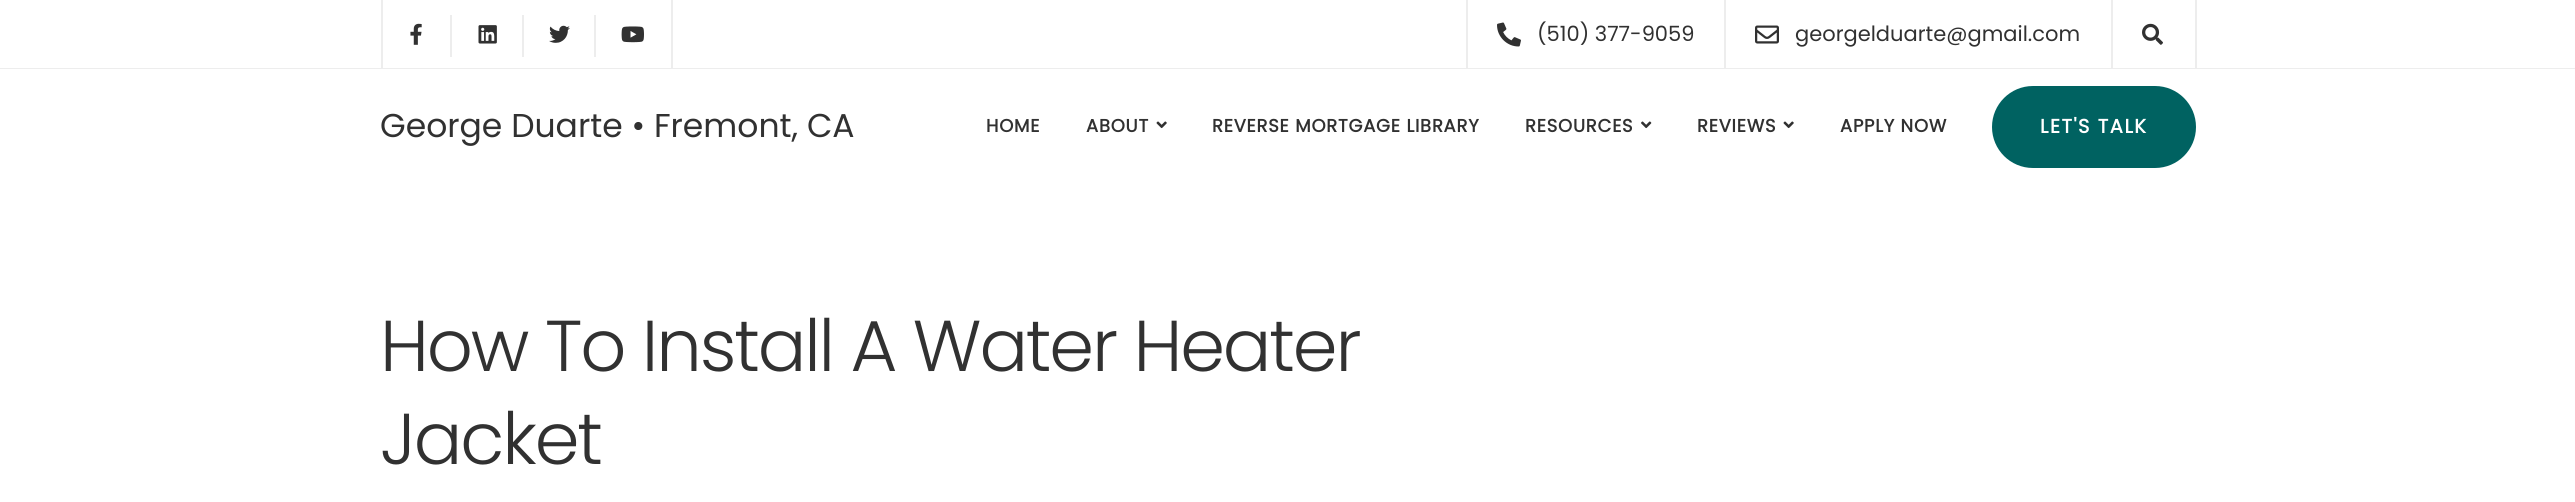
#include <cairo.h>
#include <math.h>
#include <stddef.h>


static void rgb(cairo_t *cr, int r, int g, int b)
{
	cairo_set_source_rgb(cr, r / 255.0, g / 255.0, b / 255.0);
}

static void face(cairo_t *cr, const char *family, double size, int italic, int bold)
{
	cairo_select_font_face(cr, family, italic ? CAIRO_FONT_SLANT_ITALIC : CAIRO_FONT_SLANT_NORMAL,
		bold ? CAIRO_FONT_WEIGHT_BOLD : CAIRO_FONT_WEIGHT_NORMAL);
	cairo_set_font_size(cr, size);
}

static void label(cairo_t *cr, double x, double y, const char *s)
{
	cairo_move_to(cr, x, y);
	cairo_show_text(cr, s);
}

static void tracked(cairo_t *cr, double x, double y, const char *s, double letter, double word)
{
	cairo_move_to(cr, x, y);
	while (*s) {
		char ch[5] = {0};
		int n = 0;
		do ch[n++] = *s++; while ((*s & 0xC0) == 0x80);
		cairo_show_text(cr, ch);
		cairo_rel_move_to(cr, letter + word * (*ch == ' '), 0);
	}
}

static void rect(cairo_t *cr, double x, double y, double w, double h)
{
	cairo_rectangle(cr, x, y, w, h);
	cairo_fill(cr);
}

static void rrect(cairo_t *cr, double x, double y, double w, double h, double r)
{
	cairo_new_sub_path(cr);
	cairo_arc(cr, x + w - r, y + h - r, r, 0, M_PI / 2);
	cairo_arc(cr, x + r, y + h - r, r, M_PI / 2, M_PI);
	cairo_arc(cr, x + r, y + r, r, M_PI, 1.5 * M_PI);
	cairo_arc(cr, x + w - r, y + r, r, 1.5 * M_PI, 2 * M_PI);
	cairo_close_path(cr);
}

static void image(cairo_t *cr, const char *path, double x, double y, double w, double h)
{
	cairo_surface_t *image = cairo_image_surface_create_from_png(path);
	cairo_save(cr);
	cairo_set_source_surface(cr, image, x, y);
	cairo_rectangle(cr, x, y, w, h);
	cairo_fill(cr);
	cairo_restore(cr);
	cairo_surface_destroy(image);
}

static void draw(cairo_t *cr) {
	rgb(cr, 255, 255, 255);
	cairo_paint(cr);
	rgb(cr, 237, 237, 237);
	rect(cr, 0, 68, 2575, 1);
	rect(cr, 671, 0, 2, 68);
	rect(cr, 381, 0, 2, 68);
	rect(cr, 450, 15, 2, 42);
	image(cr, "image0.png", 410, 23, 12, 22);
	rect(cr, 522, 15, 2, 42);
	image(cr, "image1.png", 478, 25, 19, 19);
	rect(cr, 594, 15, 2, 42);
	image(cr, "image2.png", 549, 25, 21, 18);
	image(cr, "image3.png", 621, 26, 23, 17);
	rect(cr, 1466, 0, 2, 68);
	rect(cr, 1724, 0, 2, 68);
	image(cr, "image4.png", 1497, 22, 24, 25);
	face(cr, "Poppins", 21, 0, 0);
	rgb(cr, 49, 49, 49);
	label(cr, 1537, 41, "(510) 377-9059");
	image(cr, "image5.png", 1755, 25, 24, 19);
	label(cr, 1795, 41, "georgelduarte@gmail.com");
	rgb(cr, 237, 237, 237);
	rect(cr, 2195, 0, 2, 68);
	rect(cr, 2111, 0, 2, 68);
	image(cr, "image6.png", 2142, 23, 21, 22);
	face(cr, "Poppins", 33, 0, 0);
	rgb(cr, 49, 49, 49);
	label(cr, 380, 137, "George Duarte • Fremont, CA");
	face(cr, "Poppins", 18, 0, 1);
	tracked(cr, 986, 132, "HOME", 0.75, 0);
	tracked(cr, 1086, 132, "ABOUT", 0.75, 0);
	image(cr, "image7.png", 1156, 121, 11, 8);
	tracked(cr, 1212, 132, "REVERSE MORTGAGE LIBRARY", 0.75, 0);
	tracked(cr, 1525, 132, "RESOURCES", 0.75, 0);
	image(cr, "image8.png", 1641, 121, 11, 8);
	tracked(cr, 1697, 132, "REVIEWS", 0.75, 0);
	image(cr, "image7.png", 1783, 121, 11, 8);
	tracked(cr, 1840, 132, "APPLY NOW", 0.75, 0);
	rgb(cr, 0, 98, 97);
	rrect(cr, 1993.5, 87.5, 201, 79, 39.5);
	cairo_fill_preserve(cr);
	cairo_set_line_width(cr, 3);
	cairo_stroke(cr);
	face(cr, "Poppins", 19.5, 0, 1);
	rgb(cr, 255, 255, 255);
	tracked(cr, 2040, 133, "LET'S TALK", 1.5, 0);
	face(cr, "Poppins Light", 72, 0, 0);
	rgb(cr, 49, 49, 49);
	tracked(cr, 380, 371, "How To Install A Water Heater", -2.15, 0);
	tracked(cr, 380, 464, "Jacket", -2.15, 0);
}

int main(void) {
	cairo_surface_t *surface = cairo_image_surface_create(CAIRO_FORMAT_RGB24, 2575, 502);
	cairo_t *cr = cairo_create(surface);
	cairo_font_options_t *options = cairo_font_options_create();
	cairo_font_options_set_hint_metrics(options, CAIRO_HINT_METRICS_OFF);
	cairo_font_options_set_hint_style(options, CAIRO_HINT_STYLE_NONE);
	cairo_set_font_options(cr, options);
	cairo_set_miter_limit(cr, 4);
	draw(cr);
	cairo_surface_write_to_png(surface, "render.png");
	cairo_font_options_destroy(options);
	cairo_destroy(cr);
	cairo_surface_destroy(surface);
	return 0;
}
